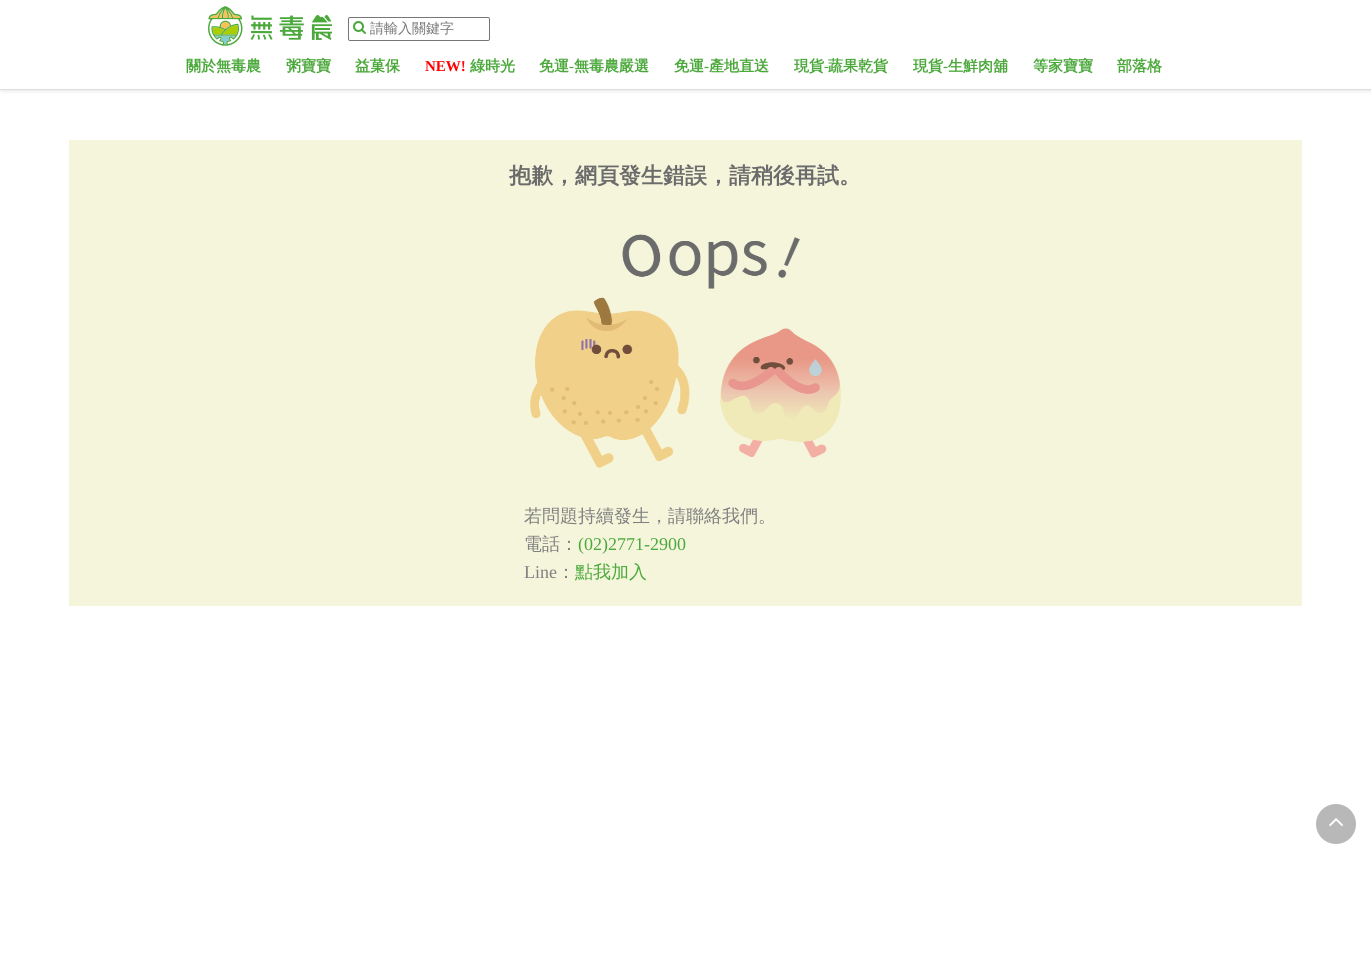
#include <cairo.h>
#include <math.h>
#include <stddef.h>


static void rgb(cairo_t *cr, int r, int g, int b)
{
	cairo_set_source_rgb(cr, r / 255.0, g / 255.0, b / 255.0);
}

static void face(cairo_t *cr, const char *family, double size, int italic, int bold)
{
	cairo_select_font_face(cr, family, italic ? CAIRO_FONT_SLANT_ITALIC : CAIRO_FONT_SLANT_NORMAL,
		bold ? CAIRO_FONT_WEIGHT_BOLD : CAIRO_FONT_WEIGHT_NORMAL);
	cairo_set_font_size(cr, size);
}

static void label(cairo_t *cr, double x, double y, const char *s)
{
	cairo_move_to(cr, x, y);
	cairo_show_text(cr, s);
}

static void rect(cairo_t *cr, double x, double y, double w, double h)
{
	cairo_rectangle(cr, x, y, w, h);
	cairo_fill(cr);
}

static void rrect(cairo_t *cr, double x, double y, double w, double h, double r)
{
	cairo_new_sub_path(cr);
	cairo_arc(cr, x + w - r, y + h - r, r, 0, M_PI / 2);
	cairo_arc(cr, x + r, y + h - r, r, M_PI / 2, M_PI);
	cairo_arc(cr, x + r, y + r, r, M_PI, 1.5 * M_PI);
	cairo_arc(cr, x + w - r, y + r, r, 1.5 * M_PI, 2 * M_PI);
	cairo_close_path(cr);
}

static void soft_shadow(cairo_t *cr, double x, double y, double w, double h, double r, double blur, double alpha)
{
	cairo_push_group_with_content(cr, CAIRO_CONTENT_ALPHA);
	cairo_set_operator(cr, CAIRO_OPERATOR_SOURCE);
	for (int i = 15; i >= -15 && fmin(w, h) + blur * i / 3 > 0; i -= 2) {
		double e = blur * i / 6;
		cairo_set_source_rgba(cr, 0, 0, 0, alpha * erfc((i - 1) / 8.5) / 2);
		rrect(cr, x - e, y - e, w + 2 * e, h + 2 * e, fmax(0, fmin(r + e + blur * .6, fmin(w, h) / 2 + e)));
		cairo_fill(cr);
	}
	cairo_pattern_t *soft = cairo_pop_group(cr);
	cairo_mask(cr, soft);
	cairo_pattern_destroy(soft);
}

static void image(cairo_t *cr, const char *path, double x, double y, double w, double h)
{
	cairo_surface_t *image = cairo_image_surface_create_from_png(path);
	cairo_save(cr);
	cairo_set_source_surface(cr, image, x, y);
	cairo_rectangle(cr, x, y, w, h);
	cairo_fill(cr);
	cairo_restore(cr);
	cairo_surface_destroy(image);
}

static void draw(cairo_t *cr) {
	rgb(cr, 255, 255, 255);
	cairo_paint(cr);
	rgb(cr, 0, 0, 0);
	soft_shadow(cr, 1, 0, 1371, 90, 0, 2.5, 0.15);
	rgb(cr, 255, 255, 255);
	rect(cr, 0, 0, 1371, 89);
	rgb(cr, 222, 222, 222);
	rect(cr, 0, 89, 1371, 1);
	image(cr, "image0.png", 208, 6, 124, 40);
	rrect(cr, 348.5, 17.5, 141, 23, 1.5);
	rgb(cr, 118, 118, 118);
	cairo_set_line_width(cr, 1);
	cairo_stroke(cr);
	image(cr, "image1.png", 353, 21, 13, 13);
	face(cr, "WenQuanYi Zen Hei Medium", 14, 0, 0);
	rgb(cr, 117, 117, 117);
	label(cr, 370, 33, "請輸入關鍵字");
	face(cr, "WenQuanYi Zen Hei", 15, 0, 1);
	rgb(cr, 75, 168, 59);
	label(cr, 186, 71, "關於無毒農");
	label(cr, 286, 71, "粥寶寶");
	label(cr, 355, 71, "益菓保");
	face(cr, "Liberation Serif", 15, 0, 1);
	rgb(cr, 255, 0, 0);
	label(cr, 425, 71, "NEW!");
	face(cr, "WenQuanYi Zen Hei", 15, 0, 1);
	rgb(cr, 75, 168, 59);
	label(cr, 470, 71, "綠時光");
	label(cr, 539, 71, "免運");
	face(cr, "Liberation Serif", 15, 0, 1);
	label(cr, 569, 71, "-");
	face(cr, "WenQuanYi Zen Hei", 15, 0, 1);
	label(cr, 574, 71, "無毒農嚴選");
	label(cr, 674, 71, "免運");
	face(cr, "Liberation Serif", 15, 0, 1);
	label(cr, 704, 71, "-");
	face(cr, "WenQuanYi Zen Hei", 15, 0, 1);
	label(cr, 709, 71, "產地直送");
	label(cr, 794, 71, "現貨");
	face(cr, "Liberation Serif", 15, 0, 1);
	label(cr, 824, 71, "-");
	face(cr, "WenQuanYi Zen Hei", 15, 0, 1);
	label(cr, 828, 71, "蔬果乾貨");
	label(cr, 913, 71, "現貨");
	face(cr, "Liberation Serif", 15, 0, 1);
	label(cr, 943, 71, "-");
	face(cr, "WenQuanYi Zen Hei", 15, 0, 1);
	label(cr, 948, 71, "生鮮肉舖");
	label(cr, 1033, 71, "等家寶寶");
	label(cr, 1117, 71, "部落格");
	rgb(cr, 245, 245, 220);
	rect(cr, 69, 140, 1233, 466);
	face(cr, "WenQuanYi Zen Hei", 22, 0, 1);
	rgb(cr, 107, 107, 107);
	label(cr, 509, 183, "抱歉，網頁發生錯誤，請稍後再試。");
	image(cr, "image2.png", 530, 234, 311, 234);
	face(cr, "WenQuanYi Zen Hei Medium", 18, 0, 0);
	rgb(cr, 128, 128, 128);
	label(cr, 524, 522, "若問題持續發生，請聯絡我們。");
	label(cr, 524, 550, "電話：");
	face(cr, "Liberation Serif", 18, 0, 0);
	rgb(cr, 75, 168, 59);
	label(cr, 578, 550, "(02)2771-2900");
	rgb(cr, 128, 128, 128);
	label(cr, 524, 578, "Line");
	face(cr, "WenQuanYi Zen Hei Medium", 18, 0, 0);
	label(cr, 557, 578, "：");
	rgb(cr, 75, 168, 59);
	label(cr, 575, 578, "點我加入");
	rgb(cr, 184, 184, 184);
	cairo_new_path(cr);
	cairo_arc(cr, 1336, 824, 20, 0, 2 * M_PI);
	cairo_fill(cr);
	image(cr, "image3.png", 1329, 818, 14, 9);
}

int main(void) {
	cairo_surface_t *surface = cairo_image_surface_create(CAIRO_FORMAT_RGB24, 1371, 954);
	cairo_t *cr = cairo_create(surface);
	cairo_font_options_t *options = cairo_font_options_create();
	cairo_font_options_set_hint_metrics(options, CAIRO_HINT_METRICS_OFF);
	cairo_font_options_set_hint_style(options, CAIRO_HINT_STYLE_NONE);
	cairo_set_font_options(cr, options);
	cairo_set_miter_limit(cr, 4);
	draw(cr);
	cairo_surface_write_to_png(surface, "render.png");
	cairo_font_options_destroy(options);
	cairo_destroy(cr);
	cairo_surface_destroy(surface);
	return 0;
}
